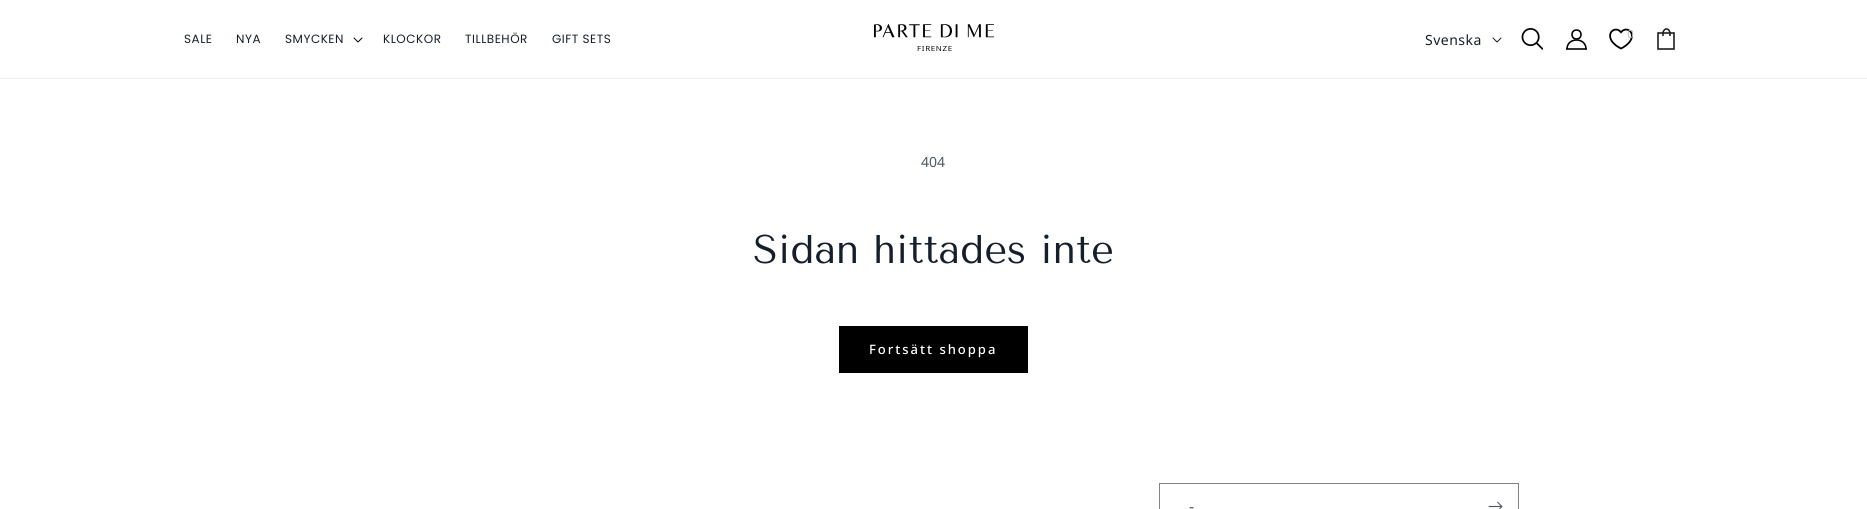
#include <cairo.h>
#include <math.h>
#include <stddef.h>


static void rgb(cairo_t *cr, int r, int g, int b)
{
	cairo_set_source_rgb(cr, r / 255.0, g / 255.0, b / 255.0);
}

static void face(cairo_t *cr, const char *family, double size, int italic, int bold)
{
	cairo_select_font_face(cr, family, italic ? CAIRO_FONT_SLANT_ITALIC : CAIRO_FONT_SLANT_NORMAL,
		bold ? CAIRO_FONT_WEIGHT_BOLD : CAIRO_FONT_WEIGHT_NORMAL);
	cairo_set_font_size(cr, size);
}

static void label(cairo_t *cr, double x, double y, const char *s)
{
	cairo_move_to(cr, x, y);
	cairo_show_text(cr, s);
}

static void tracked(cairo_t *cr, double x, double y, const char *s, double letter, double word)
{
	cairo_move_to(cr, x, y);
	while (*s) {
		char ch[5] = {0};
		int n = 0;
		do ch[n++] = *s++; while ((*s & 0xC0) == 0x80);
		cairo_show_text(cr, ch);
		cairo_rel_move_to(cr, letter + word * (*ch == ' '), 0);
	}
}

static void rect(cairo_t *cr, double x, double y, double w, double h)
{
	cairo_rectangle(cr, x, y, w, h);
	cairo_fill(cr);
}

static void image(cairo_t *cr, const char *path, double x, double y, double w, double h)
{
	cairo_surface_t *image = cairo_image_surface_create_from_png(path);
	cairo_save(cr);
	cairo_set_source_surface(cr, image, x, y);
	cairo_rectangle(cr, x, y, w, h);
	cairo_fill(cr);
	cairo_restore(cr);
	cairo_surface_destroy(image);
}

static void draw(cairo_t *cr) {
	rgb(cr, 255, 255, 255);
	cairo_paint(cr);
	rgb(cr, 236, 237, 238);
	rect(cr, 0, 78, 1867, 1);
	face(cr, "poppins", 12, 0, 0);
	rgb(cr, 21, 31, 43);
	tracked(cr, 184, 43, "SALE", 0.5, 0);
	tracked(cr, 236, 43, "NYA", 0.5, 0);
	tracked(cr, 285, 43, "SMYCKEN", 0.5, 0);
	image(cr, "image0.png", 353, 37, 10, 6);
	tracked(cr, 383, 43, "KLOCKOR", 0.5, 0);
	tracked(cr, 465, 43, "TILLBEHÖR", 0.5, 0);
	tracked(cr, 552, 43, "GIFT SETS", 0.5, 0);
	image(cr, "image1.png", 874, 24, 120, 27);
	face(cr, "Noto Sans", 14, 0, 0);
	tracked(cr, 1425, 45, "Svenska", 0.5, 0);
	image(cr, "image2.png", 1492, 37, 10, 6);
	image(cr, "image3.png", 1521, 28, 22, 22);
	cairo_arc(cr, 1576.5, 34.5, 4.5, 0, 2 * M_PI);
	rgb(cr, 0, 0, 0);
	cairo_set_line_width(cr, 1.6);
	cairo_stroke(cr);
	cairo_new_path(cr);
	cairo_move_to(cr, 1567, 49);
	cairo_curve_to(cr, 1567, 37, 1586, 37, 1586, 49);
	cairo_move_to(cr, 1566, 49);
	cairo_line_to(cr, 1587, 49);
	cairo_stroke(cr);
	image(cr, "image4.png", 1609, 28, 24, 22);
	face(cr, "poppins", 11, 0, 0);
	rgb(cr, 184, 184, 184);
	tracked(cr, 1627, 38, "0", 0.5, 0);
	image(cr, "image5.png", 1657, 28, 18, 22);
	face(cr, "Noto Sans", 14, 0, 0);
	rgb(cr, 80, 87, 96);
	label(cr, 921, 167, "404");
	face(cr, "Tenor Sans", 40, 0, 0);
	rgb(cr, 21, 31, 43);
	label(cr, 753, 263, "Sidan hittades inte");
	rgb(cr, 0, 0, 0);
	rect(cr, 839, 326, 189, 47);
	face(cr, "Noto Sans Medium", 13, 0, 0);
	rgb(cr, 255, 255, 255);
	tracked(cr, 869, 354, "Fortsätt shoppa", 2, 0);
	cairo_rectangle(cr, 1159.5, 483.5, 359, 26);
	rgb(cr, 126, 132, 138);
	cairo_set_line_width(cr, 1);
	cairo_stroke(cr);
	face(cr, "Noto Sans", 16, 0, 0);
	rgb(cr, 80, 87, 96);
	tracked(cr, 1189, 512, "-", 1, 0);
	image(cr, "image6.png", 1488, 501, 15, 8);
}

int main(void) {
	cairo_surface_t *surface = cairo_image_surface_create(CAIRO_FORMAT_RGB24, 1867, 509);
	cairo_t *cr = cairo_create(surface);
	cairo_font_options_t *options = cairo_font_options_create();
	cairo_font_options_set_hint_metrics(options, CAIRO_HINT_METRICS_OFF);
	cairo_font_options_set_hint_style(options, CAIRO_HINT_STYLE_NONE);
	cairo_set_font_options(cr, options);
	cairo_set_miter_limit(cr, 4);
	draw(cr);
	cairo_surface_write_to_png(surface, "render.png");
	cairo_font_options_destroy(options);
	cairo_destroy(cr);
	cairo_surface_destroy(surface);
	return 0;
}
